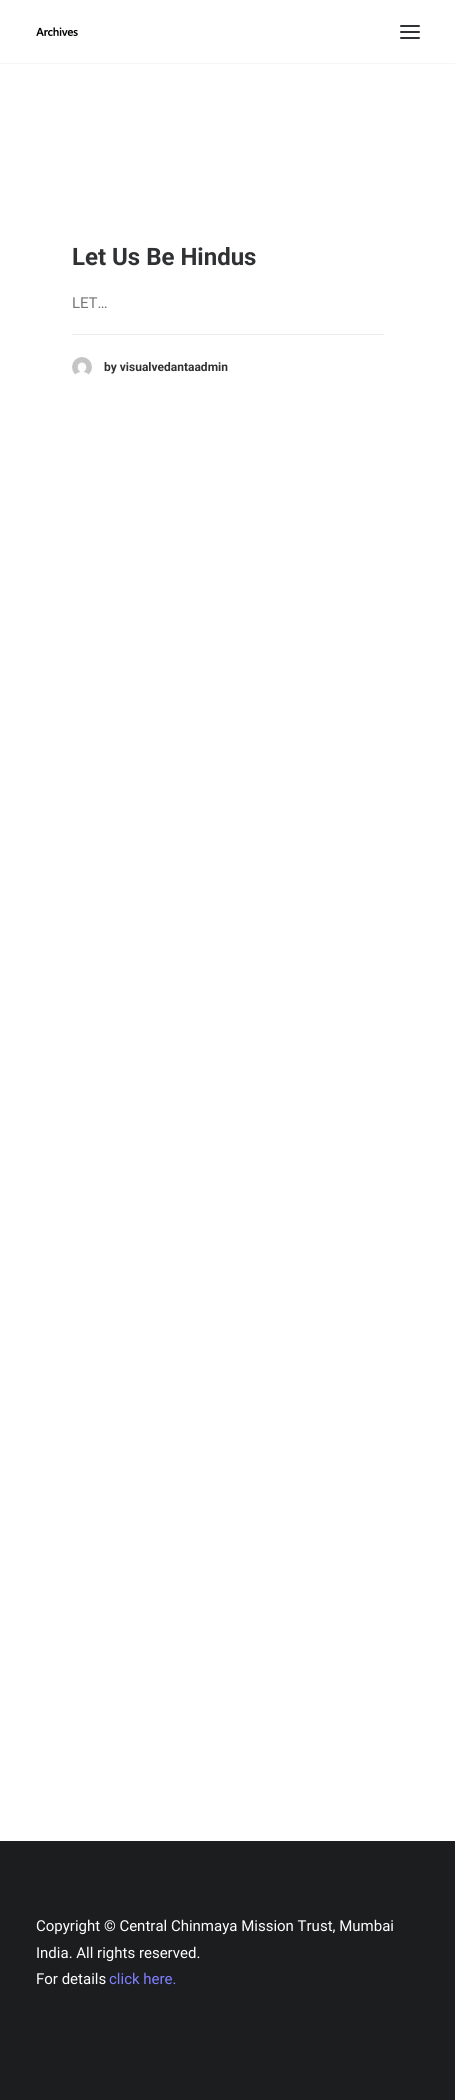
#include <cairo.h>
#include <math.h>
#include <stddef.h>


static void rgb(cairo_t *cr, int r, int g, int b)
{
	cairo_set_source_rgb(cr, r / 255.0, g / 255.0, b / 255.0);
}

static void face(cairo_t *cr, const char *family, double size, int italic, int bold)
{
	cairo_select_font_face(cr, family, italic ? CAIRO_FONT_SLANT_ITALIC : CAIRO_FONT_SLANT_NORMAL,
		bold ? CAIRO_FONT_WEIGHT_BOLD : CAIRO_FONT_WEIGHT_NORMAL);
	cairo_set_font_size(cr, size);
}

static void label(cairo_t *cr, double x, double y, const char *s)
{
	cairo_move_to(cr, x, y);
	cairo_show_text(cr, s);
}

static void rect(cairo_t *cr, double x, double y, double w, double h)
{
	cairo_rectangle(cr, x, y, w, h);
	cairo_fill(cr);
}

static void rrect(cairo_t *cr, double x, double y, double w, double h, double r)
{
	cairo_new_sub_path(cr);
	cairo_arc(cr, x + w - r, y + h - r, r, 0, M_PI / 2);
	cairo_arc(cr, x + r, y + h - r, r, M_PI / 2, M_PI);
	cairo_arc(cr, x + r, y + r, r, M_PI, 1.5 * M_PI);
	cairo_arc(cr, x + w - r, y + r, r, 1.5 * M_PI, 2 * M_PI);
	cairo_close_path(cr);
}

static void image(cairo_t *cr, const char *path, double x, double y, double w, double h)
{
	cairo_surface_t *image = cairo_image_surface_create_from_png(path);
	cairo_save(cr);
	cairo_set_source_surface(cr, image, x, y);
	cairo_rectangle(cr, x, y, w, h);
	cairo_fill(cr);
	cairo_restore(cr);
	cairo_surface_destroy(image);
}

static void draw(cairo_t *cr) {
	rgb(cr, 255, 255, 255);
	cairo_paint(cr);
	rgb(cr, 245, 245, 245);
	rect(cr, 0, 63, 455, 1);
	image(cr, "image0.png", 36, 27, 42, 9);
	rgb(cr, 48, 49, 51);
	rrect(cr, 400, 31, 20, 2, 1);
	cairo_fill(cr);
	rrect(cr, 400, 25, 20, 2, 1);
	cairo_fill(cr);
	rrect(cr, 400, 37, 20, 2, 1);
	cairo_fill(cr);
	face(cr, "Roboto", 24, 0, 1);
	label(cr, 72, 265, "Let Us Be Hindus");
	face(cr, "Roboto", 15, 0, 0);
	rgb(cr, 119, 119, 119);
	label(cr, 72, 308, "LET…");
	rgb(cr, 234, 234, 234);
	rect(cr, 72, 334, 312, 1);
	image(cr, "image1.png", 72, 357, 20, 18);
	face(cr, "Roboto", 12, 0, 1);
	rgb(cr, 48, 49, 51);
	label(cr, 104, 371, "by visualvedantaadmin");
	rgb(cr, 27, 29, 31);
	rect(cr, 0, 1841, 455, 259);
	face(cr, "Roboto", 15, 0, 0);
	rgb(cr, 255, 255, 255);
	label(cr, 36, 1931, "Copyright © Central Chinmaya Mission Trust, Mumbai");
	label(cr, 36, 1958, "India. All rights reserved.");
	label(cr, 36, 1984, "For details");
	rgb(cr, 127, 127, 255);
	label(cr, 109, 1984, "click here.");
}

int main(void) {
	cairo_surface_t *surface = cairo_image_surface_create(CAIRO_FORMAT_RGB24, 455, 2100);
	cairo_t *cr = cairo_create(surface);
	cairo_font_options_t *options = cairo_font_options_create();
	cairo_font_options_set_hint_metrics(options, CAIRO_HINT_METRICS_OFF);
	cairo_font_options_set_hint_style(options, CAIRO_HINT_STYLE_NONE);
	cairo_set_font_options(cr, options);
	cairo_set_miter_limit(cr, 4);
	draw(cr);
	cairo_surface_write_to_png(surface, "render.png");
	cairo_font_options_destroy(options);
	cairo_destroy(cr);
	cairo_surface_destroy(surface);
	return 0;
}
